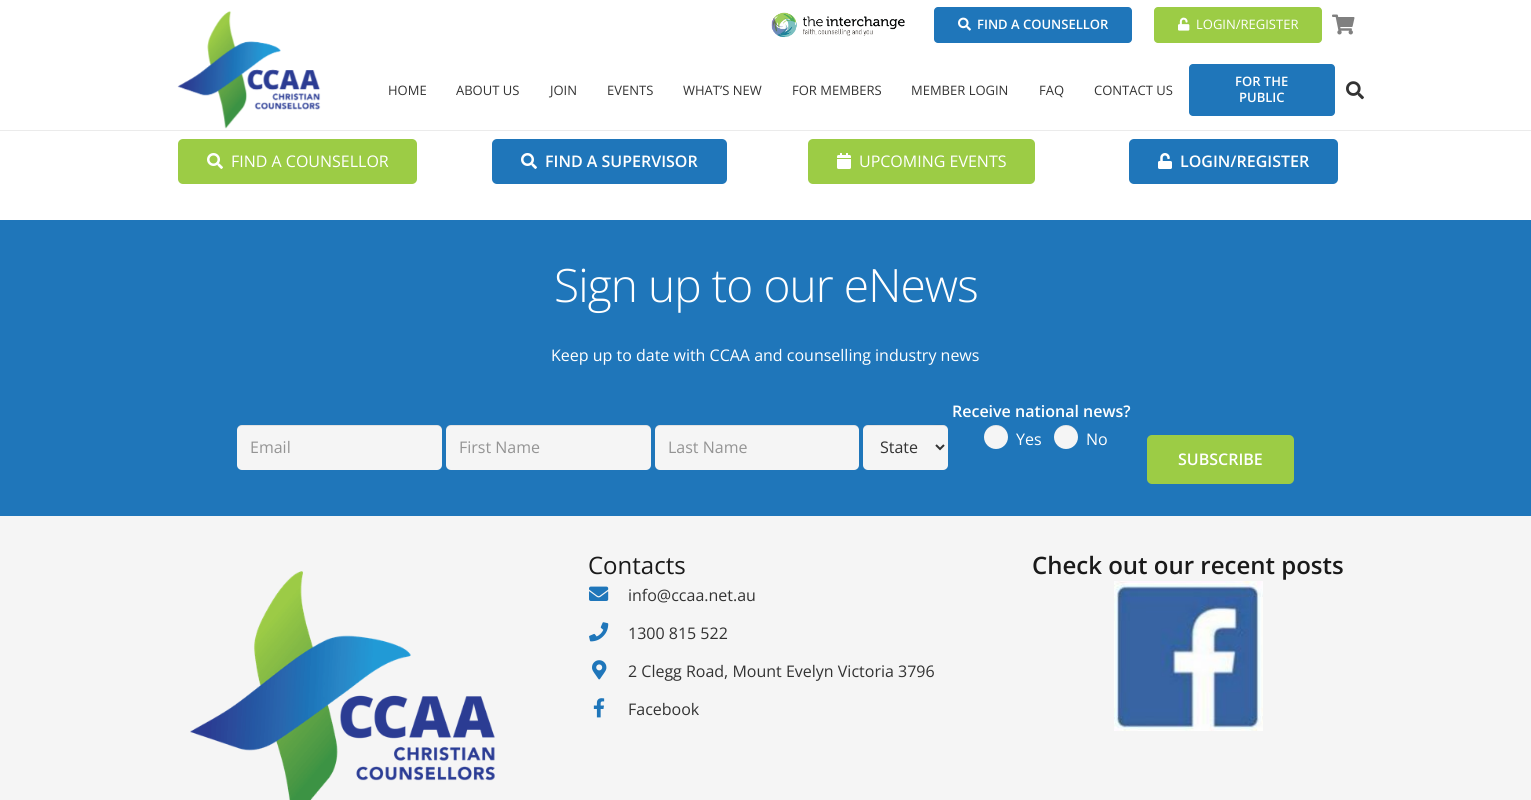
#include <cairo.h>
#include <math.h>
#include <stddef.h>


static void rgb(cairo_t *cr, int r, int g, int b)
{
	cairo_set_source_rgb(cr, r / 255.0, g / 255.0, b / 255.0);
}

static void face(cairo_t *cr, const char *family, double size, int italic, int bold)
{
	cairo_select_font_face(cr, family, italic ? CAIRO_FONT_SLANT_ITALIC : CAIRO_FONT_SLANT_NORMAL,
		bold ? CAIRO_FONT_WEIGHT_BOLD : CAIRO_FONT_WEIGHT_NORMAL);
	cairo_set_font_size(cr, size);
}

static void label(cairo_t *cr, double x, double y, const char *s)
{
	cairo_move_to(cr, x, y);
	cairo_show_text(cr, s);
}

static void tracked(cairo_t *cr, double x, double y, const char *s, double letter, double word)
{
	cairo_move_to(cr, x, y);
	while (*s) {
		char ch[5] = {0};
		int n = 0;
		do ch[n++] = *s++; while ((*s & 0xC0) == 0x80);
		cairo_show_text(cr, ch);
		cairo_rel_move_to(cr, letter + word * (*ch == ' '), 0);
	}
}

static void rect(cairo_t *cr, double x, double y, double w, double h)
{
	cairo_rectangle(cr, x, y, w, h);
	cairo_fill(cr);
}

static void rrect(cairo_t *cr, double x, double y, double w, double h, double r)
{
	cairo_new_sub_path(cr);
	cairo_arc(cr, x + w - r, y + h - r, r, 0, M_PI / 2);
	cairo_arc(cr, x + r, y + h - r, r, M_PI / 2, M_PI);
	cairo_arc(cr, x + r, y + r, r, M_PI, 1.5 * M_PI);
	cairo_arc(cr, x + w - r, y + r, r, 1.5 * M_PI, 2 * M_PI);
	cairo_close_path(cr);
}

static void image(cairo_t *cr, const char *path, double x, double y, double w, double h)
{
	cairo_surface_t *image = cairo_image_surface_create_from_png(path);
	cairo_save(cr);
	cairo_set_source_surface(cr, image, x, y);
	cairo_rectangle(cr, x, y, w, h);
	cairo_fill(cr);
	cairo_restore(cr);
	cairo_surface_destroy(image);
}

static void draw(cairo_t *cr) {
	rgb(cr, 255, 255, 255);
	cairo_paint(cr);
	image(cr, "image0.png", 771, 12, 134, 26);
	rgb(cr, 31, 118, 186);
	rrect(cr, 934, 7, 198, 36, 4);
	cairo_fill(cr);
	image(cr, "image1.png", 958, 17, 13, 14);
	face(cr, "Open Sans SemiBold", 13, 0, 0);
	rgb(cr, 255, 255, 255);
	label(cr, 977, 29, "FIND A COUNSELLOR");
	rgb(cr, 156, 204, 69);
	rrect(cr, 1154, 7, 168, 36, 4);
	cairo_fill(cr);
	image(cr, "image2.png", 1178, 17, 12, 14);
	face(cr, "Open Sans", 13, 0, 0);
	rgb(cr, 255, 255, 255);
	label(cr, 1196, 29, "LOGIN/REGISTER");
	image(cr, "image3.png", 1332, 14, 23, 21);
	rgb(cr, 235, 235, 235);
	rect(cr, 0, 130, 1531, 1);
	image(cr, "image4.png", 177, 11, 144, 118);
	rgb(cr, 51, 51, 51);
	label(cr, 388, 95, "HOME");
	label(cr, 456, 95, "ABOUT US");
	label(cr, 550, 95, "JOIN");
	label(cr, 607, 95, "EVENTS");
	label(cr, 683, 95, "WHAT’S NEW");
	label(cr, 792, 95, "FOR MEMBERS");
	label(cr, 911, 95, "MEMBER LOGIN");
	label(cr, 1039, 95, "FAQ");
	label(cr, 1094, 95, "CONTACT US");
	rgb(cr, 31, 118, 186);
	rrect(cr, 1189, 64, 146, 52, 4);
	cairo_fill(cr);
	face(cr, "Open Sans SemiBold", 13, 0, 0);
	rgb(cr, 255, 255, 255);
	label(cr, 1235, 86, "FOR THE");
	label(cr, 1239, 102, "PUBLIC");
	image(cr, "image5.png", 1346, 81, 18, 19);
	rgb(cr, 156, 204, 69);
	rrect(cr, 178, 139, 239, 45, 5);
	cairo_fill(cr);
	image(cr, "image6.png", 207, 153, 16, 16);
	face(cr, "Open Sans", 16, 0, 0);
	rgb(cr, 255, 255, 255);
	label(cr, 231, 167, "FIND A COUNSELLOR");
	rgb(cr, 31, 118, 186);
	rrect(cr, 492, 139, 235, 45, 5);
	cairo_fill(cr);
	image(cr, "image7.png", 521, 153, 16, 16);
	face(cr, "Open Sans SemiBold", 16, 0, 0);
	rgb(cr, 255, 255, 255);
	label(cr, 545, 167, "FIND A SUPERVISOR");
	rgb(cr, 156, 204, 69);
	rrect(cr, 808, 139, 227, 45, 5);
	cairo_fill(cr);
	image(cr, "image8.png", 837, 153, 14, 16);
	face(cr, "Open Sans", 16, 0, 0);
	rgb(cr, 255, 255, 255);
	label(cr, 859, 167, "UPCOMING EVENTS");
	rgb(cr, 31, 118, 186);
	rrect(cr, 1129, 139, 209, 45, 5);
	cairo_fill(cr);
	image(cr, "image9.png", 1158, 153, 14, 16);
	face(cr, "Open Sans SemiBold", 16, 0, 0);
	rgb(cr, 255, 255, 255);
	label(cr, 1180, 167, "LOGIN/REGISTER");
	rgb(cr, 31, 118, 186);
	rect(cr, 0, 220, 1531, 296);
	face(cr, "Open Sans Light", 46, 0, 0);
	rgb(cr, 255, 255, 255);
	tracked(cr, 554, 302, "Sign up to our eNews", -0.9, 0);
	face(cr, "Open Sans", 16, 0, 0);
	label(cr, 551, 361, "Keep up to date with CCAA and counselling industry news");
	rgb(cr, 245, 245, 245);
	rrect(cr, 237, 425, 205, 45, 5);
	cairo_fill(cr);
	cairo_set_source_rgba(cr, 0, 0, 0, 0.08);
	cairo_new_path(cr);
	cairo_move_to(cr, 242, 426);
	cairo_line_to(cr, 437, 426);
	cairo_curve_to(cr, 440, 426, 442, 428, 442, 431);
	cairo_line_to(cr, 442, 430);
	cairo_curve_to(cr, 442, 427, 440, 425, 437, 425);
	cairo_line_to(cr, 242, 425);
	cairo_curve_to(cr, 239, 425, 237, 427, 237, 430);
	cairo_line_to(cr, 237, 431);
	cairo_curve_to(cr, 237, 428, 239, 426, 242, 426);
	cairo_close_path(cr);
	cairo_fill(cr);
	rgb(cr, 148, 148, 148);
	label(cr, 250, 453, "Email");
	rgb(cr, 245, 245, 245);
	rrect(cr, 446, 425, 205, 45, 5);
	cairo_fill(cr);
	cairo_set_source_rgba(cr, 0, 0, 0, 0.08);
	cairo_new_path(cr);
	cairo_move_to(cr, 451, 426);
	cairo_line_to(cr, 646, 426);
	cairo_curve_to(cr, 649, 426, 651, 428, 651, 431);
	cairo_line_to(cr, 651, 430);
	cairo_curve_to(cr, 651, 427, 649, 425, 646, 425);
	cairo_line_to(cr, 451, 425);
	cairo_curve_to(cr, 448, 425, 446, 427, 446, 430);
	cairo_line_to(cr, 446, 431);
	cairo_curve_to(cr, 446, 428, 448, 426, 451, 426);
	cairo_close_path(cr);
	cairo_fill(cr);
	rgb(cr, 148, 148, 148);
	label(cr, 459, 453, "First Name");
	rgb(cr, 245, 245, 245);
	rrect(cr, 655, 425, 204, 45, 5);
	cairo_fill(cr);
	cairo_set_source_rgba(cr, 0, 0, 0, 0.08);
	cairo_new_path(cr);
	cairo_move_to(cr, 660, 426);
	cairo_line_to(cr, 854, 426);
	cairo_curve_to(cr, 857, 426, 859, 428, 859, 431);
	cairo_line_to(cr, 859, 430);
	cairo_curve_to(cr, 859, 427, 857, 425, 854, 425);
	cairo_line_to(cr, 660, 425);
	cairo_curve_to(cr, 657, 425, 655, 427, 655, 430);
	cairo_line_to(cr, 655, 431);
	cairo_curve_to(cr, 655, 428, 657, 426, 660, 426);
	cairo_close_path(cr);
	cairo_fill(cr);
	rgb(cr, 148, 148, 148);
	label(cr, 668, 453, "Last Name");
	rgb(cr, 245, 245, 245);
	rrect(cr, 863, 425, 85, 45, 5);
	cairo_fill(cr);
	cairo_set_source_rgba(cr, 0, 0, 0, 0.08);
	cairo_new_path(cr);
	cairo_move_to(cr, 868, 426);
	cairo_line_to(cr, 943, 426);
	cairo_curve_to(cr, 946, 426, 948, 428, 948, 431);
	cairo_curve_to(cr, 948, 422, 936, 425, 930, 425);
	cairo_line_to(cr, 880, 425);
	cairo_curve_to(cr, 875, 425, 863, 422, 863, 431);
	cairo_curve_to(cr, 863, 428, 865, 426, 868, 426);
	cairo_close_path(cr);
	cairo_fill(cr);
	cairo_new_path(cr);
	cairo_move_to(cr, 936, 445);
	cairo_line_to(cr, 940, 449);
	cairo_line_to(cr, 944, 445);
	rgb(cr, 51, 51, 51);
	cairo_stroke(cr);
	label(cr, 880, 453, "State");
	face(cr, "Open Sans SemiBold", 16, 0, 0);
	rgb(cr, 255, 255, 255);
	label(cr, 952, 417, "Receive national news?");
	rgb(cr, 245, 245, 245);
	cairo_new_path(cr);
	cairo_arc(cr, 996, 437, 12, 0, 2 * M_PI);
	cairo_fill(cr);
	cairo_set_source_rgba(cr, 0, 0, 0, 0.08);
	cairo_new_path(cr);
	cairo_move_to(cr, 996, 426);
	cairo_curve_to(cr, 1004, 426, 1008, 431.5, 1008, 437.5);
	cairo_curve_to(cr, 1008.5, 421, 983.5, 421, 984, 437.5);
	cairo_curve_to(cr, 984, 431.5, 988, 426, 996, 426);
	cairo_close_path(cr);
	cairo_fill(cr);
	face(cr, "Open Sans", 16, 0, 0);
	rgb(cr, 255, 255, 255);
	label(cr, 1016, 445, "Yes");
	rgb(cr, 245, 245, 245);
	cairo_new_path(cr);
	cairo_arc(cr, 1066, 437, 12, 0, 2 * M_PI);
	cairo_fill(cr);
	cairo_set_source_rgba(cr, 0, 0, 0, 0.08);
	cairo_new_path(cr);
	cairo_move_to(cr, 1066, 426);
	cairo_curve_to(cr, 1074, 426, 1078, 431.5, 1078, 437.5);
	cairo_curve_to(cr, 1078.5, 421, 1053.5, 421, 1054, 437.5);
	cairo_curve_to(cr, 1054, 431.5, 1058, 426, 1066, 426);
	cairo_close_path(cr);
	cairo_fill(cr);
	rgb(cr, 255, 255, 255);
	label(cr, 1086, 445, "No");
	rgb(cr, 156, 204, 69);
	rrect(cr, 1147, 435, 147, 49, 5);
	cairo_fill(cr);
	face(cr, "Open Sans SemiBold", 16, 0, 0);
	rgb(cr, 255, 255, 255);
	label(cr, 1178, 465, "SUBSCRIBE");
	rgb(cr, 245, 245, 245);
	rect(cr, 0, 516, 1531, 284);
	image(cr, "image10.png", 190, 571, 305, 229);
	face(cr, "Open Sans", 24, 0, 0);
	rgb(cr, 26, 26, 26);
	label(cr, 588, 574, "Contacts");
	image(cr, "image11.png", 589, 586, 20, 15);
	face(cr, "Open Sans", 16, 0, 0);
	rgb(cr, 51, 51, 51);
	label(cr, 628, 601, "info@ccaa.net.au");
	image(cr, "image12.png", 589, 622, 20, 20);
	label(cr, 628, 639, "1300 815 522");
	image(cr, "image13.png", 592, 660, 15, 20);
	label(cr, 628, 677, "2 Clegg Road, Mount Evelyn Victoria 3796");
	image(cr, "image14.png", 593, 698, 12, 20);
	label(cr, 628, 715, "Facebook");
	face(cr, "Open Sans SemiBold", 24, 0, 0);
	rgb(cr, 26, 26, 26);
	label(cr, 1032, 574, "Check out our recent posts");
	image(cr, "image15.png", 1114, 581, 149, 150);
}

int main(void) {
	cairo_surface_t *surface = cairo_image_surface_create(CAIRO_FORMAT_RGB24, 1531, 800);
	cairo_t *cr = cairo_create(surface);
	cairo_font_options_t *options = cairo_font_options_create();
	cairo_font_options_set_hint_metrics(options, CAIRO_HINT_METRICS_OFF);
	cairo_font_options_set_hint_style(options, CAIRO_HINT_STYLE_NONE);
	cairo_set_font_options(cr, options);
	cairo_set_miter_limit(cr, 4);
	draw(cr);
	cairo_surface_write_to_png(surface, "render.png");
	cairo_font_options_destroy(options);
	cairo_destroy(cr);
	cairo_surface_destroy(surface);
	return 0;
}
